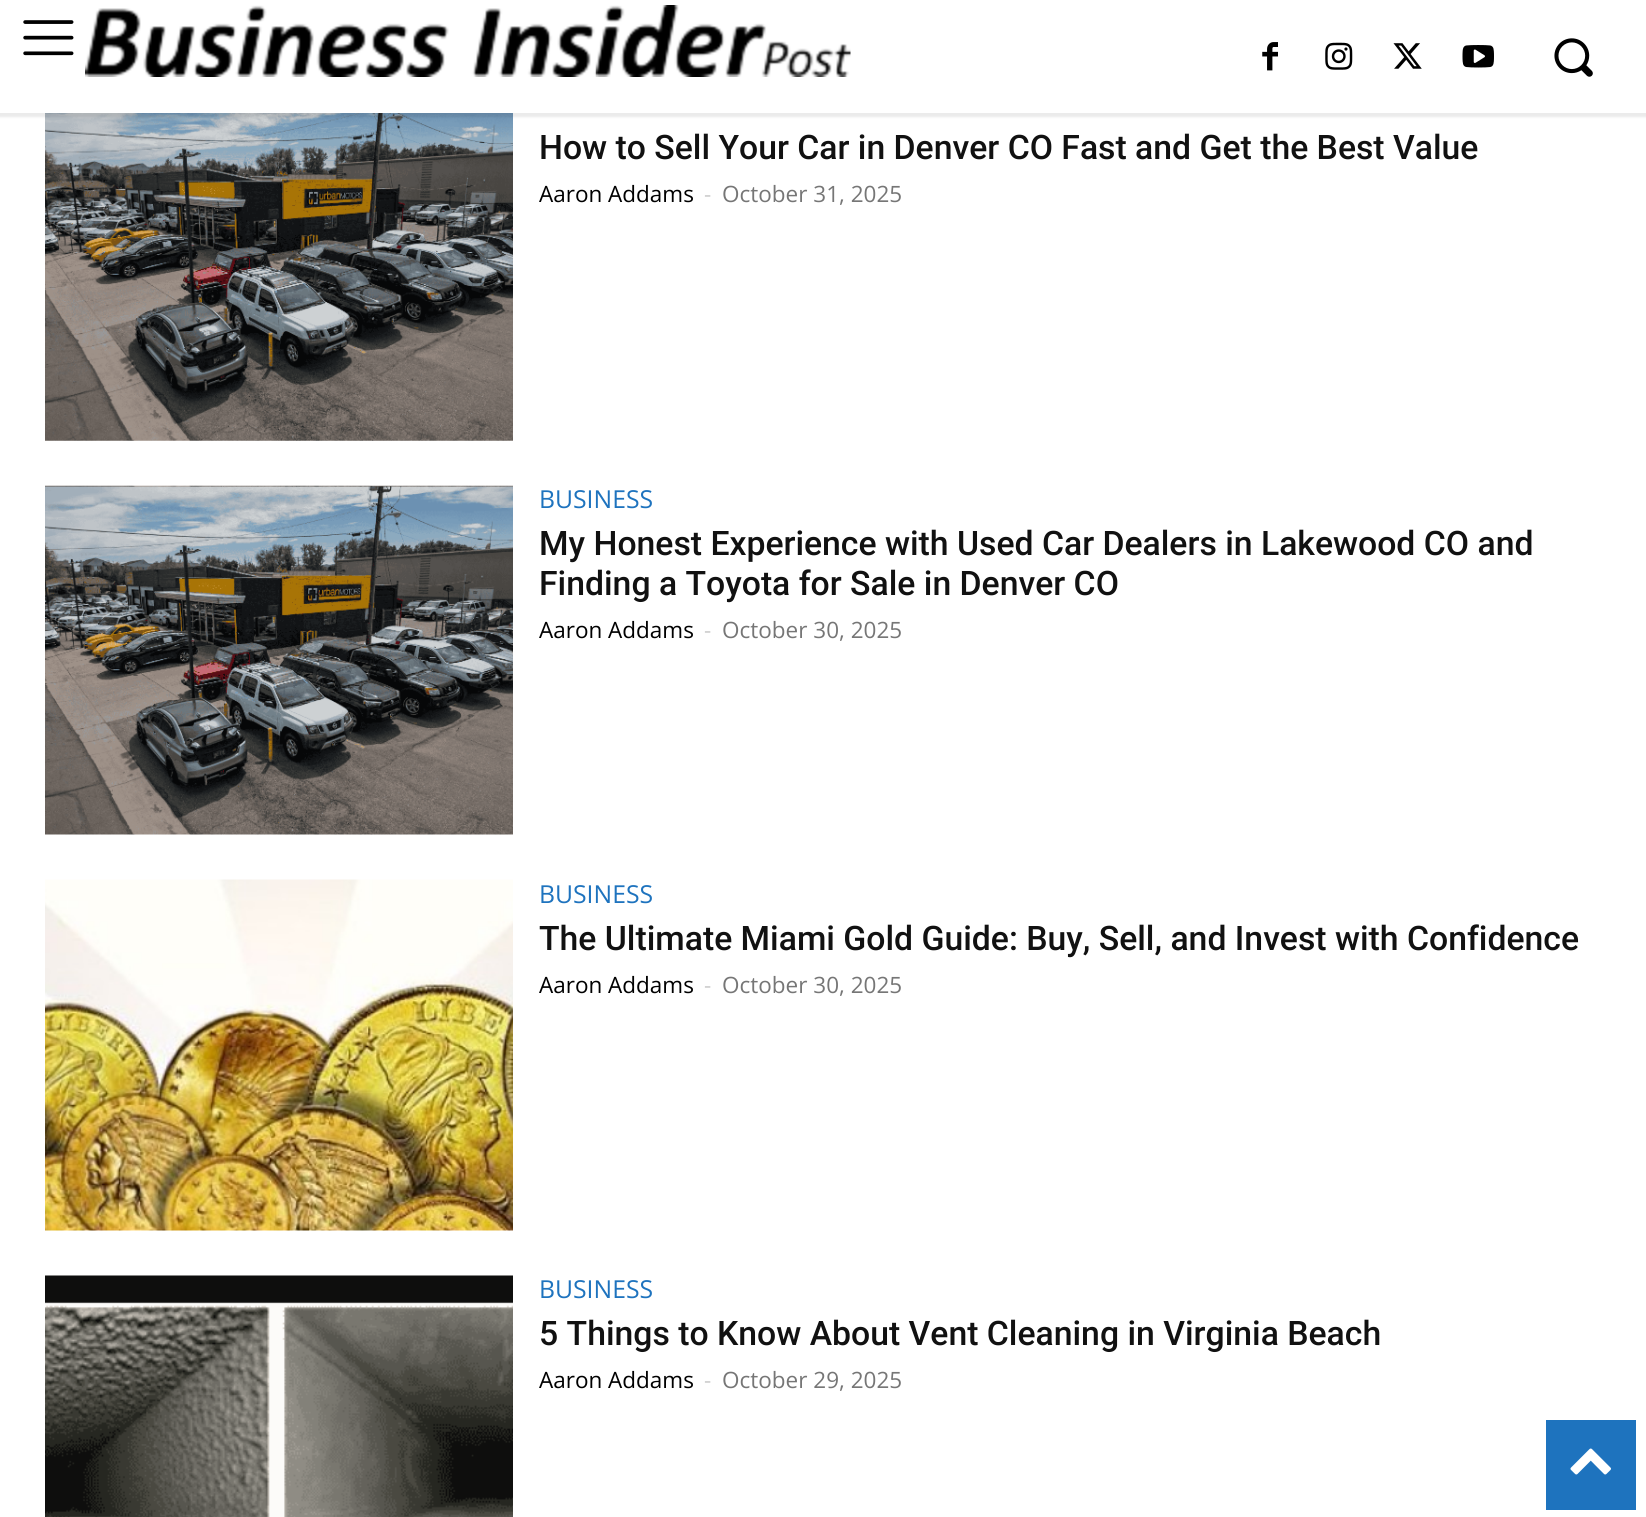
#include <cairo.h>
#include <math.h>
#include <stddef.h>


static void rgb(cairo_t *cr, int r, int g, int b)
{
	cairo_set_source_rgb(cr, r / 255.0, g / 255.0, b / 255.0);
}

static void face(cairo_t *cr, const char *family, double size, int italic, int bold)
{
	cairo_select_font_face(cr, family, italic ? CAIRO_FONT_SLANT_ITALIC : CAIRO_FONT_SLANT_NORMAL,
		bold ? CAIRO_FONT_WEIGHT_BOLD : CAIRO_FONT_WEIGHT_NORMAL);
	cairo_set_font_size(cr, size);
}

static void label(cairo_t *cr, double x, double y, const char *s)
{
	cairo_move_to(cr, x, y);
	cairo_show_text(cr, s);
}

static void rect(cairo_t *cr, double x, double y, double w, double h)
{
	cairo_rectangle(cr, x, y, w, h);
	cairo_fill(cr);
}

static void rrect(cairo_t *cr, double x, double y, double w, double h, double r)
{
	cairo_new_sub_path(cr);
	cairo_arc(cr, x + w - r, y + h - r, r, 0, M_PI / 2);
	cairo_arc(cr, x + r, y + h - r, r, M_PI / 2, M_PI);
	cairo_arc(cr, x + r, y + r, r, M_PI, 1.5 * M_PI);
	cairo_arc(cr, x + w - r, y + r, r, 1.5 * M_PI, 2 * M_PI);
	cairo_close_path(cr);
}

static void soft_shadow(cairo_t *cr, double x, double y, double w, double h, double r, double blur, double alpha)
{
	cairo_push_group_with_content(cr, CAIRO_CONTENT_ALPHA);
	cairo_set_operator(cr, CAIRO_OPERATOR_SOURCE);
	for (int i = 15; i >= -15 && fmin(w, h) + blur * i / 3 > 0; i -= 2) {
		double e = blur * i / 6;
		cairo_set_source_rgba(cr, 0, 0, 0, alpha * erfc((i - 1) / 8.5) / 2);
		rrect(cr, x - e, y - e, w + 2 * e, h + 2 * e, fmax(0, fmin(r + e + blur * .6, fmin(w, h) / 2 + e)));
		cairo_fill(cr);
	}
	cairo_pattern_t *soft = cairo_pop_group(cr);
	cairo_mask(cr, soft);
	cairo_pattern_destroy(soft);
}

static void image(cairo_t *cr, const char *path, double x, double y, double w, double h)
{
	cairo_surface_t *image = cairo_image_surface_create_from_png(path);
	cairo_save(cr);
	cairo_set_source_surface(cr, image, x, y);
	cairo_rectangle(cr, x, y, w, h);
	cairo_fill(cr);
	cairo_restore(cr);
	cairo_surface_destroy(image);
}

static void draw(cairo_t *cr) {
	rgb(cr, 255, 255, 255);
	cairo_paint(cr);
	image(cr, "image0.png", 23, 20, 51, 36);
	image(cr, "image1.png", 85, 5, 766, 72);
	image(cr, "image2.png", 1262, 42, 16, 29);
	image(cr, "image3.png", 1325, 42, 28, 28);
	image(cr, "image4.png", 1393, 43, 29, 26);
	image(cr, "image5.png", 1462, 45, 32, 23);
	image(cr, "image6.png", 1554, 38, 39, 39);
	image(cr, "image7.png", 45, 113, 468, 328);
	cairo_save(cr);
	cairo_set_fill_rule(cr, CAIRO_FILL_RULE_EVEN_ODD);
	cairo_new_path(cr);
	cairo_move_to(cr, 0, 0);
	cairo_line_to(cr, 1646, 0);
	cairo_line_to(cr, 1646, 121);
	cairo_line_to(cr, 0, 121);
	cairo_close_path(cr);
	cairo_move_to(cr, 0, 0);
	cairo_line_to(cr, 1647, 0);
	cairo_line_to(cr, 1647, 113);
	cairo_line_to(cr, 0, 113);
	cairo_close_path(cr);
	cairo_clip(cr);
	rgb(cr, 0, 0, 0);
	soft_shadow(cr, -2, 0, 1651, 117, 0, 1, 0.08);
	cairo_restore(cr);
	face(cr, "Roboto Medium", 33.75, 0, 0);
	rgb(cr, 17, 17, 17);
	label(cr, 539, 159, "How to Sell Your Car in Denver CO Fast and Get the Best Value");
	face(cr, "Open Sans", 22.5, 0, 0);
	rgb(cr, 0, 0, 0);
	label(cr, 539, 202, "Aaron Addams");
	rgb(cr, 204, 204, 204);
	label(cr, 704, 202, "-");
	rgb(cr, 118, 118, 118);
	label(cr, 722, 202, "October 31, 2025");
	image(cr, "image8.png", 45, 485, 468, 350);
	face(cr, "Open Sans", 24.75, 0, 0);
	rgb(cr, 30, 115, 190);
	label(cr, 539, 508, "BUSINESS");
	face(cr, "Roboto Medium", 33.75, 0, 0);
	rgb(cr, 17, 17, 17);
	label(cr, 539, 555, "My Honest Experience with Used Car Dealers in Lakewood CO and");
	label(cr, 539, 595, "Finding a Toyota for Sale in Denver CO");
	face(cr, "Open Sans", 22.5, 0, 0);
	rgb(cr, 0, 0, 0);
	label(cr, 539, 638, "Aaron Addams");
	rgb(cr, 204, 204, 204);
	label(cr, 704, 638, "-");
	rgb(cr, 118, 118, 118);
	label(cr, 722, 638, "October 30, 2025");
	image(cr, "image9.png", 45, 879, 468, 352);
	face(cr, "Open Sans", 24.75, 0, 0);
	rgb(cr, 30, 115, 190);
	label(cr, 539, 903, "BUSINESS");
	face(cr, "Roboto Medium", 33.75, 0, 0);
	rgb(cr, 17, 17, 17);
	label(cr, 539, 950, "The Ultimate Miami Gold Guide: Buy, Sell, and Invest with Confidence");
	face(cr, "Open Sans", 22.5, 0, 0);
	rgb(cr, 0, 0, 0);
	label(cr, 539, 993, "Aaron Addams");
	rgb(cr, 204, 204, 204);
	label(cr, 704, 993, "-");
	rgb(cr, 118, 118, 118);
	label(cr, 722, 993, "October 30, 2025");
	image(cr, "image10.png", 45, 1275, 468, 242);
	face(cr, "Open Sans", 24.75, 0, 0);
	rgb(cr, 30, 115, 190);
	label(cr, 539, 1298, "BUSINESS");
	face(cr, "Roboto Medium", 33.75, 0, 0);
	rgb(cr, 17, 17, 17);
	label(cr, 539, 1345, "5 Things to Know About Vent Cleaning in Virginia Beach");
	face(cr, "Open Sans", 22.5, 0, 0);
	rgb(cr, 0, 0, 0);
	label(cr, 539, 1388, "Aaron Addams");
	rgb(cr, 204, 204, 204);
	label(cr, 704, 1388, "-");
	rgb(cr, 118, 118, 118);
	label(cr, 722, 1388, "October 29, 2025");
	rgb(cr, 30, 115, 190);
	rect(cr, 1546, 1420, 90, 90);
	image(cr, "image11.png", 1570, 1448, 41, 27);
}

int main(void) {
	cairo_surface_t *surface = cairo_image_surface_create(CAIRO_FORMAT_RGB24, 1646, 1517);
	cairo_t *cr = cairo_create(surface);
	cairo_font_options_t *options = cairo_font_options_create();
	cairo_font_options_set_hint_metrics(options, CAIRO_HINT_METRICS_OFF);
	cairo_font_options_set_hint_style(options, CAIRO_HINT_STYLE_NONE);
	cairo_set_font_options(cr, options);
	cairo_set_miter_limit(cr, 4);
	draw(cr);
	cairo_surface_write_to_png(surface, "render.png");
	cairo_font_options_destroy(options);
	cairo_destroy(cr);
	cairo_surface_destroy(surface);
	return 0;
}
